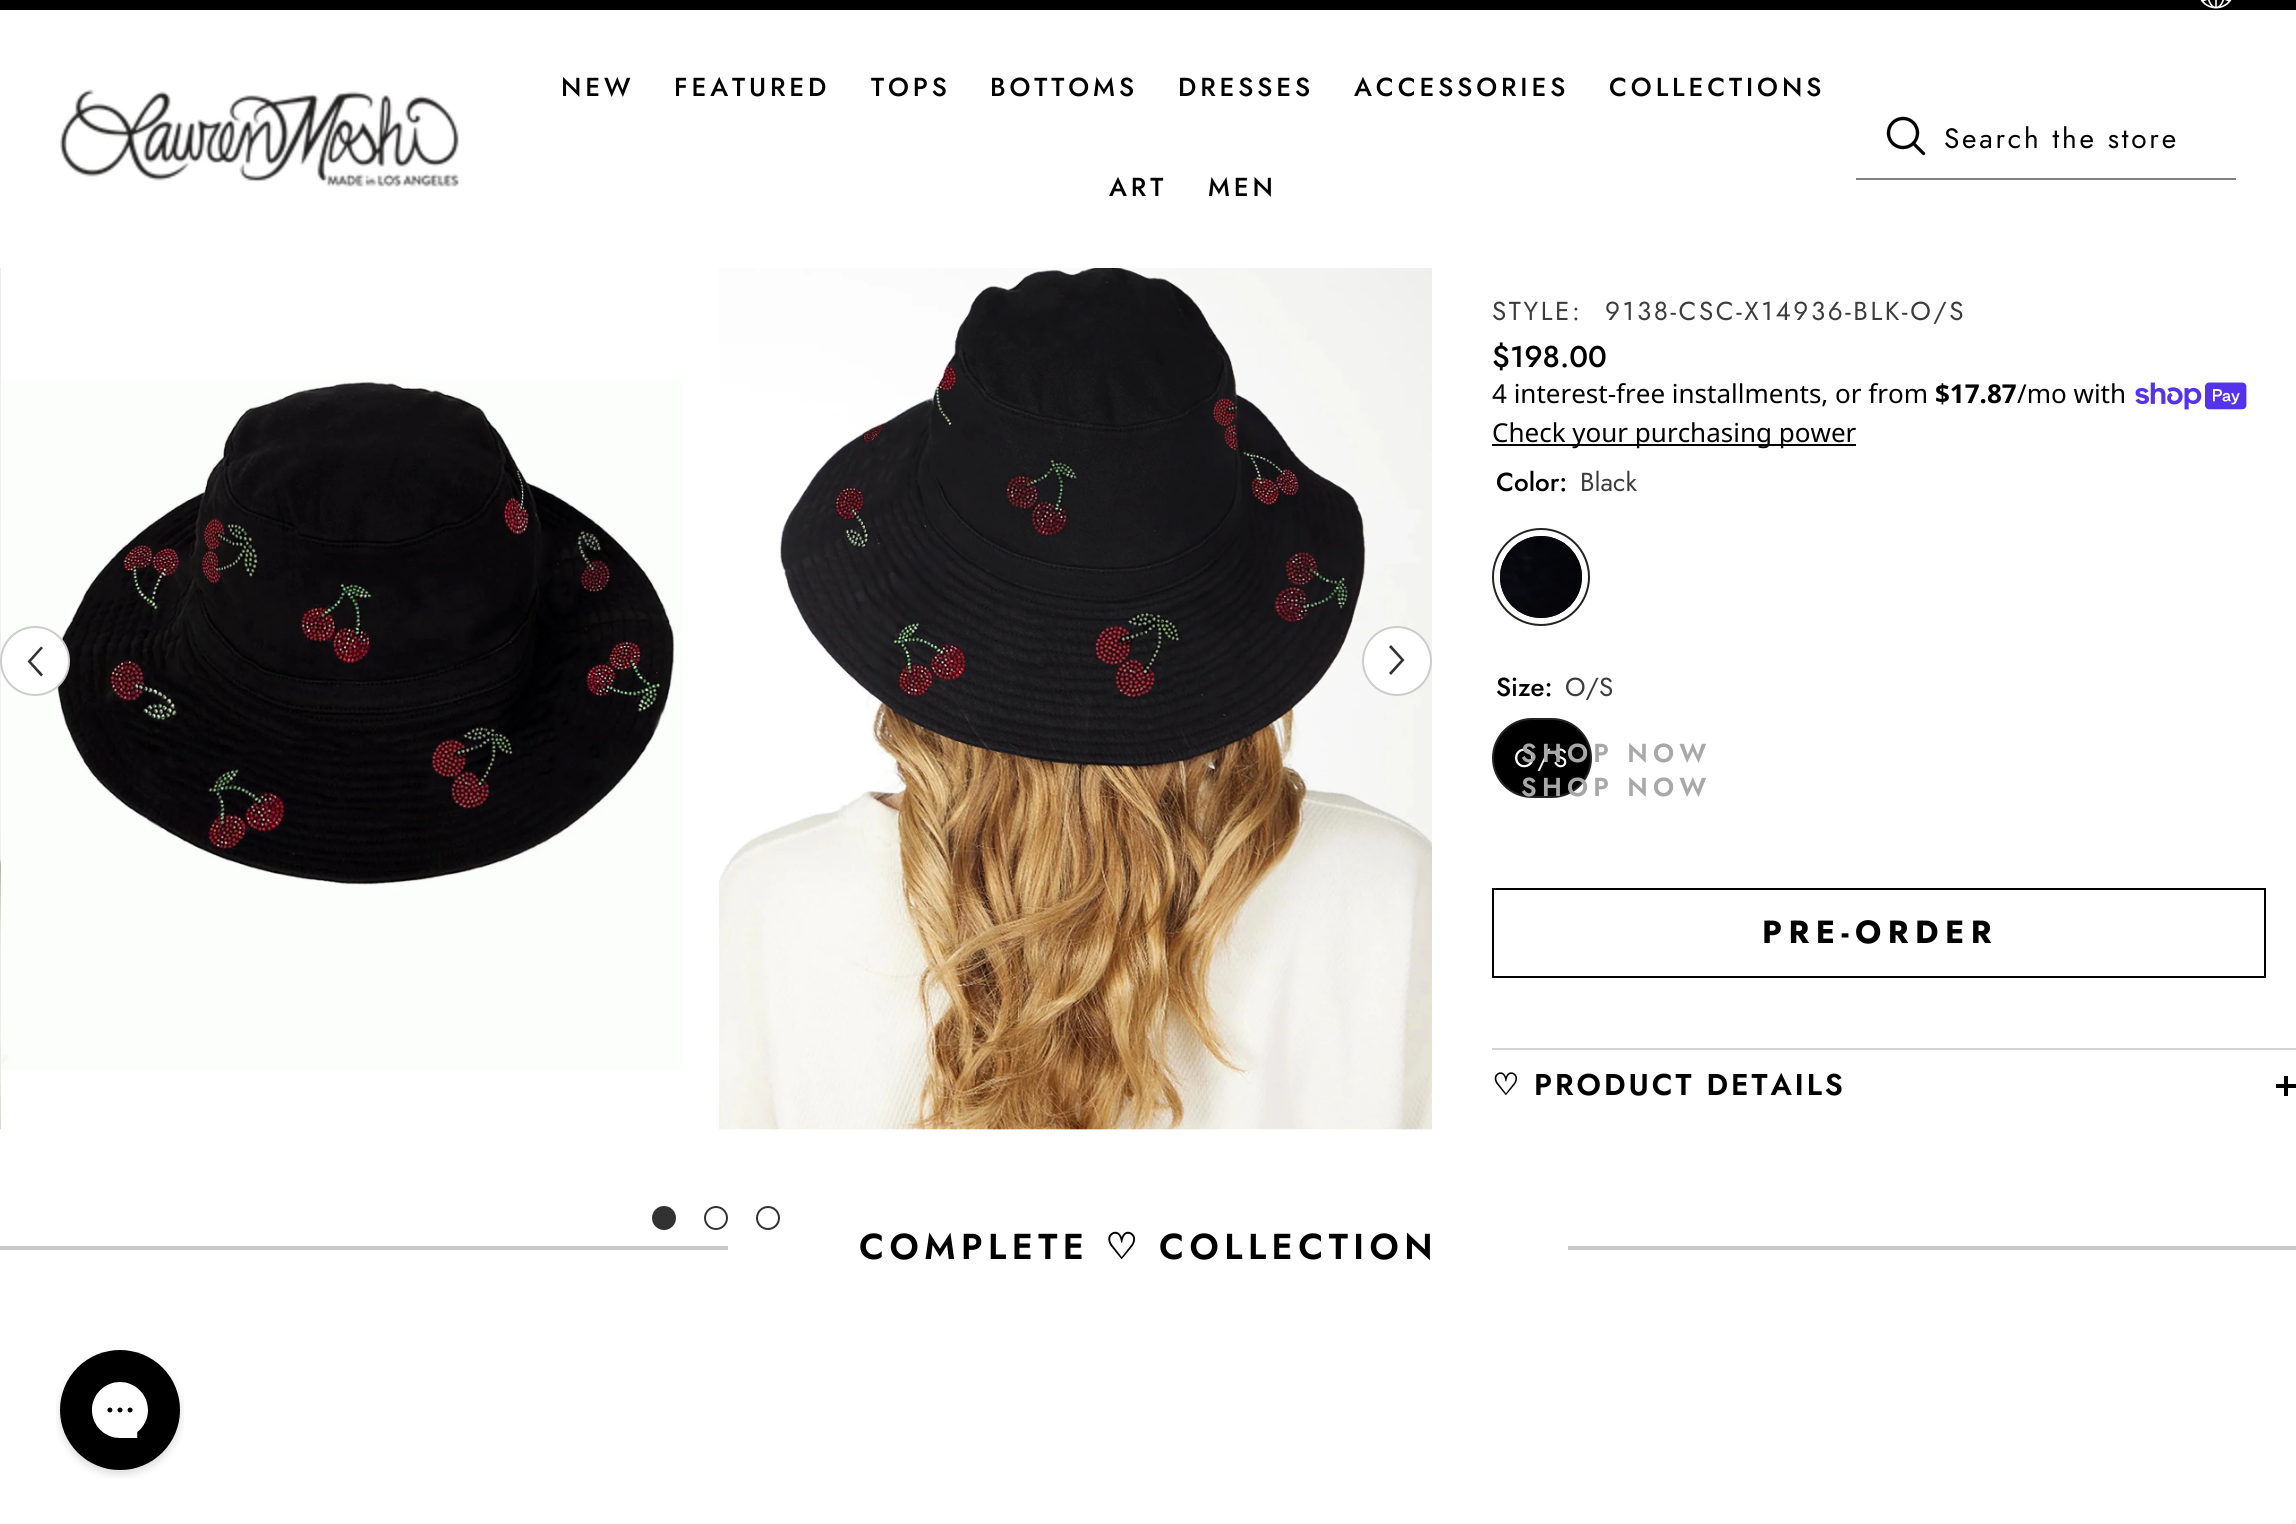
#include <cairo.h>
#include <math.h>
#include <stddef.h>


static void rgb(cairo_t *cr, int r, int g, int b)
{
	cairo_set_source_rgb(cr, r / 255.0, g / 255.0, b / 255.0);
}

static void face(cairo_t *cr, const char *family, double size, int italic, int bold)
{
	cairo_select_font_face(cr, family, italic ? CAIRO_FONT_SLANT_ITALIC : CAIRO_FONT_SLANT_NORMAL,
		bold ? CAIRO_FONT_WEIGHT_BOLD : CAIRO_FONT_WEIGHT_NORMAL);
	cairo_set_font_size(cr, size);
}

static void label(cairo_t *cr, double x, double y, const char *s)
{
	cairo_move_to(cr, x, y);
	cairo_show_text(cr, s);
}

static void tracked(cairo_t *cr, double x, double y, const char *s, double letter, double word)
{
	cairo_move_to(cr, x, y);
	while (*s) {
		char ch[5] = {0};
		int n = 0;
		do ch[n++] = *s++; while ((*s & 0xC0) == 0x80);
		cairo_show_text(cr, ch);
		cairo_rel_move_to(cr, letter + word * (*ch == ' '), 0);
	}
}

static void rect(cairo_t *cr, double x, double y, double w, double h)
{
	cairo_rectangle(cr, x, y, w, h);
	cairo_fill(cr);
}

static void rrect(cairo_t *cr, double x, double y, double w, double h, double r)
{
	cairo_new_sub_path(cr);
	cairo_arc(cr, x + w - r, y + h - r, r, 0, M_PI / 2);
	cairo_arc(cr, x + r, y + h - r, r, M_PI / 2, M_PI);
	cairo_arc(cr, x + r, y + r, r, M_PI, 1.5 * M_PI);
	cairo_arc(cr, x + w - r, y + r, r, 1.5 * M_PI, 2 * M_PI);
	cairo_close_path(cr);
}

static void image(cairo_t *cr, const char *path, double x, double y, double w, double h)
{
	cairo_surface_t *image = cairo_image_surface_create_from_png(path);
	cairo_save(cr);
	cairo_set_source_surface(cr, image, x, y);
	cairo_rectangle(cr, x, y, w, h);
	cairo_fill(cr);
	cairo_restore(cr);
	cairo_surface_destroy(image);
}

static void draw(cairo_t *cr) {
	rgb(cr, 255, 255, 255);
	cairo_paint(cr);
	rgb(cr, 0, 0, 0);
	rect(cr, 0, 0, 2296, 10);
	image(cr, "image0.png", 2200, 0, 32, 9);
	image(cr, "image1.png", 60, 89, 399, 98);
	face(cr, "Jost Medium", 26, 0, 0);
	rgb(cr, 1, 1, 1);
	tracked(cr, 561, 96, "NEW", 3.9, 0);
	rgb(cr, 0, 0, 0);
	rrect(cr, 1493, 719, 98, 78, 39);
	cairo_fill_preserve(cr);
	rgb(cr, 35, 35, 35);
	cairo_stroke(cr);
	face(cr, "Jost SemiBold", 26, 0, 0);
	rgb(cr, 168, 168, 168);
	tracked(cr, 1521, 796, "SHOP NOW", 5.25, 0);
	face(cr, "Jost Medium", 26, 0, 0);
	rgb(cr, 1, 1, 1);
	tracked(cr, 674, 96, "FEATURED", 3.9, 0);
	tracked(cr, 990, 96, "BOTTOMS", 3.9, 0);
	face(cr, "Jost", 26, 0, 0);
	rgb(cr, 255, 255, 255);
	tracked(cr, 1514, 767, "O/S", 2.6, 0);
	face(cr, "Jost SemiBold", 26, 0, 0);
	rgb(cr, 168, 168, 168);
	tracked(cr, 1521, 762, "SHOP NOW", 5.25, 0);
	face(cr, "Jost Medium", 26, 0, 0);
	rgb(cr, 1, 1, 1);
	tracked(cr, 871, 96, "TOPS", 3.9, 0);
	tracked(cr, 1178, 96, "DRESSES", 3.9, 0);
	tracked(cr, 1354, 96, "ACCESSORIES", 3.9, 0);
	tracked(cr, 1609, 96, "COLLECTIONS", 3.9, 0);
	tracked(cr, 1109, 196, "ART", 3.9, 0);
	tracked(cr, 1208, 196, "MEN", 3.9, 0);
	image(cr, "image2.png", 1886, 116, 40, 40);
	rgb(cr, 128, 128, 128);
	rect(cr, 1856, 178, 380, 2);
	face(cr, "Jost", 28, 0, 0);
	rgb(cr, 1, 1, 1);
	tracked(cr, 1944, 148, "Search the store", 2.75, 0);
	image(cr, "image3.png", 0, 268, 1, 862);
	image(cr, "image4.png", 1, 379, 682, 692);
	image(cr, "image5.png", 719, 268, 713, 862);
	rgb(cr, 255, 255, 255);
	cairo_arc(cr, 35, 661, 34, 0, 2 * M_PI);
	cairo_fill_preserve(cr);
	rgb(cr, 204, 204, 204);
	cairo_stroke(cr);
	rgb(cr, 50, 50, 50);
	cairo_new_path(cr);
	cairo_move_to(cr, 41, 676.5);
	cairo_line_to(cr, 43, 674.5);
	cairo_line_to(cr, 31, 661.5);
	cairo_line_to(cr, 43, 648);
	cairo_line_to(cr, 41, 646.5);
	cairo_line_to(cr, 27.5, 661.5);
	cairo_line_to(cr, 28.5, 662.5);
	cairo_close_path(cr);
	cairo_fill(cr);
	rgb(cr, 255, 255, 255);
	cairo_arc(cr, 1397, 661, 34, 0, 2 * M_PI);
	cairo_fill_preserve(cr);
	rgb(cr, 204, 204, 204);
	cairo_stroke(cr);
	rgb(cr, 50, 50, 50);
	cairo_new_path(cr);
	cairo_move_to(cr, 1391, 645);
	cairo_line_to(cr, 1389, 647);
	cairo_line_to(cr, 1401, 660);
	cairo_line_to(cr, 1389, 673);
	cairo_line_to(cr, 1391, 675);
	cairo_line_to(cr, 1404.5, 660);
	cairo_line_to(cr, 1403.5, 659);
	cairo_close_path(cr);
	cairo_fill(cr);
	cairo_arc(cr, 664, 1218, 11, 0, 2 * M_PI);
	cairo_fill_preserve(cr);
	cairo_stroke(cr);
	cairo_arc(cr, 716, 1218, 11, 0, 2 * M_PI);
	cairo_stroke(cr);
	cairo_arc(cr, 768, 1218, 11, 0, 2 * M_PI);
	cairo_stroke(cr);
	face(cr, "Jost", 26, 0, 0);
	rgb(cr, 60, 60, 60);
	tracked(cr, 1492, 320, "STYLE:", 2.6, 0);
	tracked(cr, 1605, 320, "9138-CSC-X14936-BLK-O/S", 2.6, 0);
	face(cr, "Jost Medium", 30, 0, 0);
	rgb(cr, 1, 1, 1);
	label(cr, 1492, 367, "$198.00");
	face(cr, "Noto Sans", 26, 0, 0);
	label(cr, 1492, 403, "4 interest-free installments, or from");
	face(cr, "Noto Sans", 26, 0, 1);
	label(cr, 1935, 403, "$17.87");
	face(cr, "Noto Sans", 26, 0, 0);
	label(cr, 2017, 403, "/mo with");
	image(cr, "image6.png", 2135, 382, 112, 28);
	rgb(cr, 0, 0, 0);
	rect(cr, 1492, 444, 364, 2);
	rgb(cr, 1, 1, 1);
	label(cr, 1492, 442, "Check your purchasing power");
	face(cr, "Jost Medium", 26, 0, 0);
	label(cr, 1496, 491, "Color:");
	face(cr, "Jost", 26, 0, 0);
	rgb(cr, 60, 60, 60);
	label(cr, 1580, 491, "Black");
	cairo_new_path(cr);
	cairo_arc(cr, 1541, 577, 48, 0, 2 * M_PI);
	rgb(cr, 35, 35, 35);
	cairo_stroke(cr);
	rgb(cr, 0, 0, 0);
	cairo_arc(cr, 1541, 577, 41, 0, 2 * M_PI);
	cairo_fill(cr);
	image(cr, "image7.png", 1500, 536, 82, 82);
	face(cr, "Jost Medium", 26, 0, 0);
	rgb(cr, 1, 1, 1);
	label(cr, 1496, 696, "Size:");
	face(cr, "Jost", 26, 0, 0);
	rgb(cr, 60, 60, 60);
	label(cr, 1565, 696, "O/S");
	cairo_rectangle(cr, 1493, 889, 772, 88);
	rgb(cr, 0, 0, 0);
	cairo_stroke(cr);
	face(cr, "Jost", 32, 0, 1);
	rgb(cr, 1, 1, 1);
	tracked(cr, 1762, 943, "PRE-ORDER", 6.5, 0);
	rgb(cr, 211, 211, 211);
	rect(cr, 1492, 1048, 804, 2);
	face(cr, "DejaVu Sans", 30, 0, 1);
	rgb(cr, 1, 1, 1);
	tracked(cr, 1492, 1095, "♡", 3, 0);
	face(cr, "Jost SemiBold", 30, 0, 0);
	tracked(cr, 1534, 1095, "PRODUCT DETAILS", 3, 0);
	rgb(cr, 0, 0, 0);
	rect(cr, 2284, 1076, 4, 20);
	rect(cr, 2276, 1084, 20, 4);
	rgb(cr, 199, 199, 199);
	rect(cr, 0, 1246, 2296, 4);
	rgb(cr, 255, 255, 255);
	rect(cr, 728, 1246, 840, 4);
	face(cr, "Jost SemiBold", 36, 0, 0);
	rgb(cr, 1, 1, 1);
	tracked(cr, 859, 1259, "COMPLETE", 5.5, 0);
	face(cr, "DejaVu Sans", 36, 0, 1);
	tracked(cr, 1105, 1259, "♡", 5.5, 0);
	face(cr, "Jost SemiBold", 36, 0, 0);
	tracked(cr, 1159, 1259, "COLLECTION", 5.5, 0);
	image(cr, "image8.png", 56, 1350, 128, 128);
	rgb(cr, 245, 245, 245);
	rect(cr, 2292, 1520, 4, 4);
}

int main(void) {
	cairo_surface_t *surface = cairo_image_surface_create(CAIRO_FORMAT_RGB24, 2296, 1524);
	cairo_t *cr = cairo_create(surface);
	cairo_font_options_t *options = cairo_font_options_create();
	cairo_font_options_set_hint_metrics(options, CAIRO_HINT_METRICS_OFF);
	cairo_font_options_set_hint_style(options, CAIRO_HINT_STYLE_NONE);
	cairo_set_font_options(cr, options);
	cairo_set_miter_limit(cr, 4);
	draw(cr);
	cairo_surface_write_to_png(surface, "render.png");
	cairo_font_options_destroy(options);
	cairo_destroy(cr);
	cairo_surface_destroy(surface);
	return 0;
}
